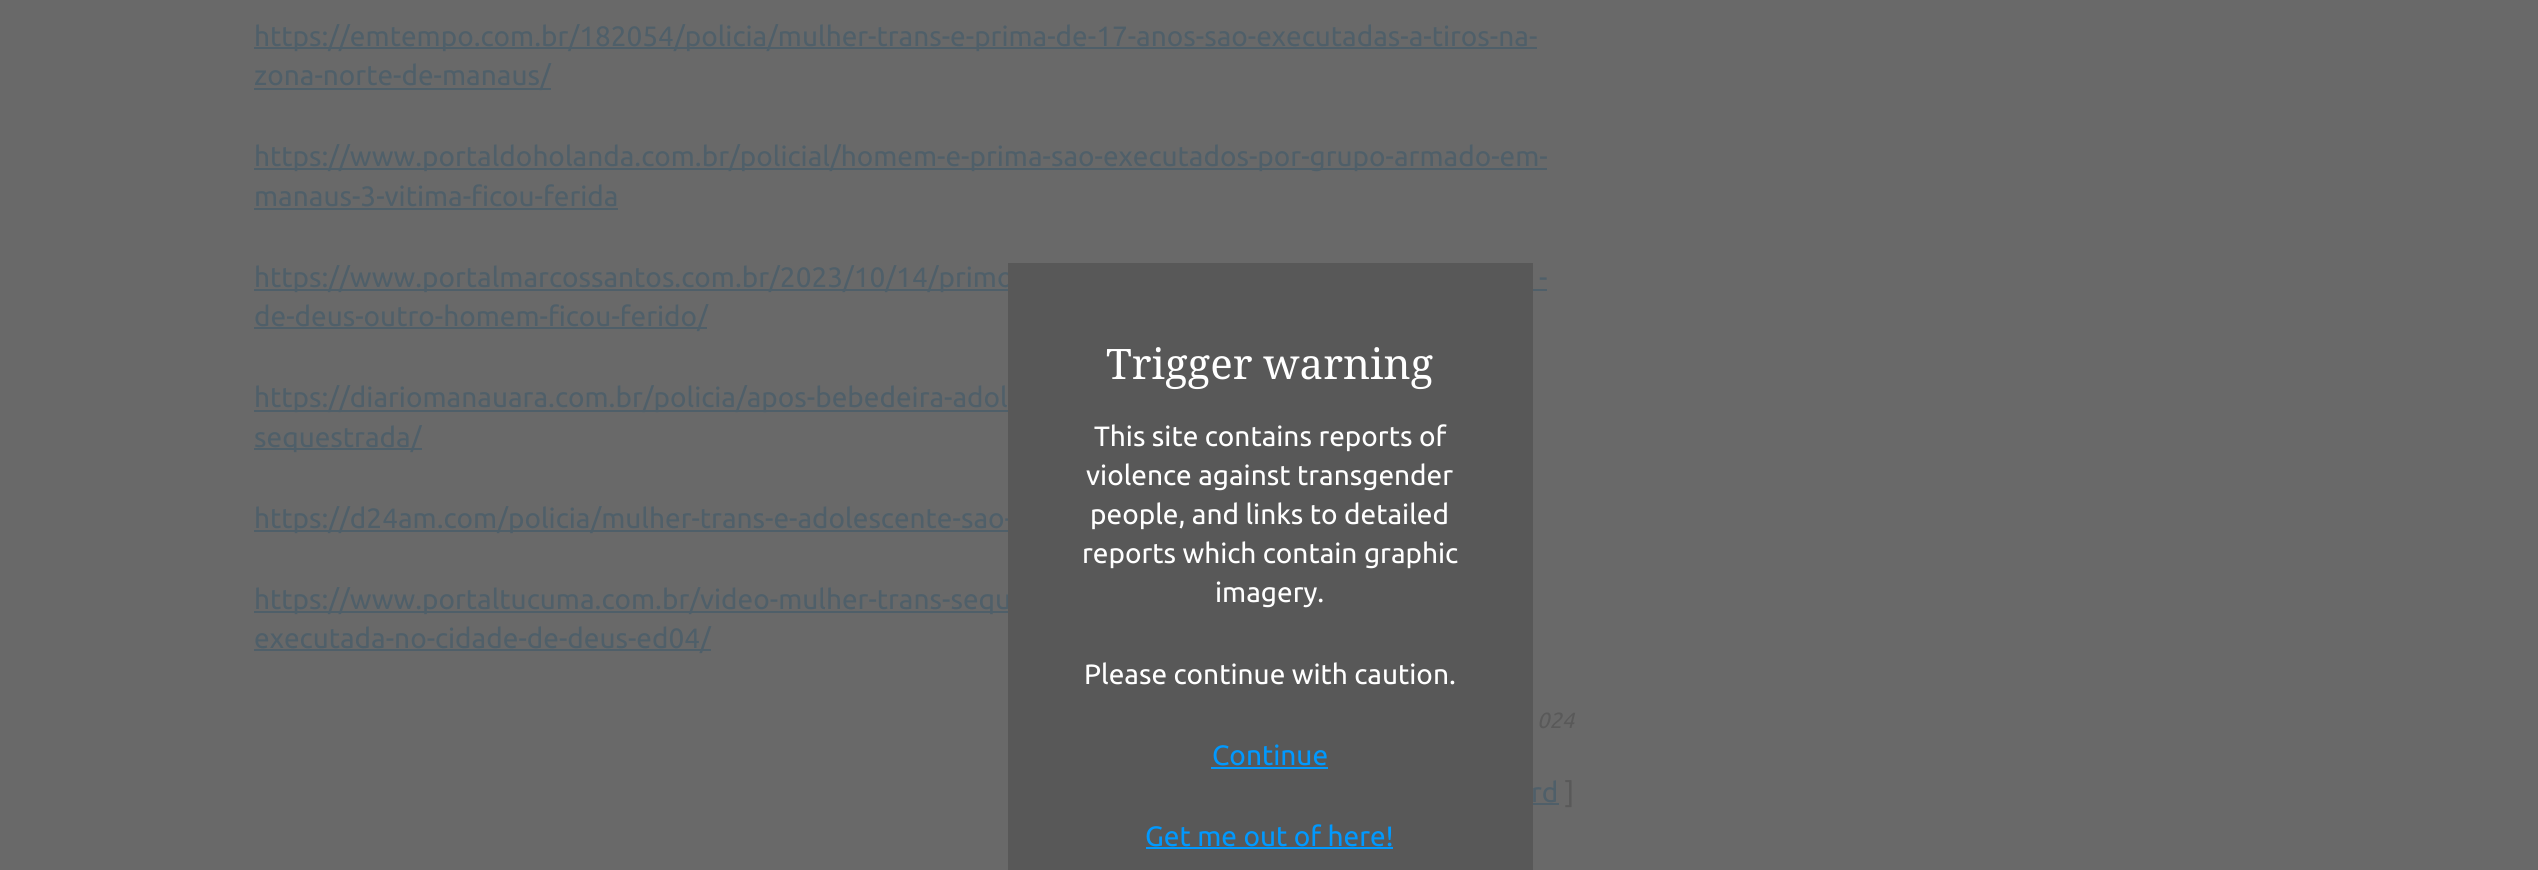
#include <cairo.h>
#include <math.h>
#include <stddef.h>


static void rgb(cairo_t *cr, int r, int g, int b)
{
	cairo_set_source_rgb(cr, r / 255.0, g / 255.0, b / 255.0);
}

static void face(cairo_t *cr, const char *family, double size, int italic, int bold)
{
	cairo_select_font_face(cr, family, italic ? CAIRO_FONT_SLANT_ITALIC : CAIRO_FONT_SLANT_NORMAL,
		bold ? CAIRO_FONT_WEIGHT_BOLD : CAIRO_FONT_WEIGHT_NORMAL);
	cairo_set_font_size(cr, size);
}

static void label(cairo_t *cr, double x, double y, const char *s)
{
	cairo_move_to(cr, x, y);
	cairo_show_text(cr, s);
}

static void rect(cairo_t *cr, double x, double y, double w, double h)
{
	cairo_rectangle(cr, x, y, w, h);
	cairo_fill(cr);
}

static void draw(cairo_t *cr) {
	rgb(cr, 105, 105, 105);
	cairo_paint(cr);
	rgb(cr, 79, 95, 105);
	rect(cr, 254, 47, 1283, 2);
	face(cr, "Ubuntu", 28, 0, 0);
	label(cr, 254, 46, "https://emtempo.com.br/182054/policia/mulher-trans-e-prima-de-17-anos-sao-executadas-a-tiros-na-");
	rect(cr, 254, 88, 297, 2);
	label(cr, 254, 85, "zona-norte-de-manaus/");
	rect(cr, 254, 168, 1293, 2);
	label(cr, 254, 166, "https://www.portaldoholanda.com.br/policial/homem-e-prima-sao-executados-por-grupo-armado-em-");
	label(cr, 254, 206, "manaus-3-vitima-ficou-ferida");
	rect(cr, 254, 208, 364, 2);
	rect(cr, 254, 289, 1293, 2);
	label(cr, 254, 287, "https://www.portalmarcossantos.com.br/2023/10/14/primo");
	label(cr, 1539, 287, "-");
	rect(cr, 254, 327, 453, 2);
	label(cr, 254, 326, "de-deus-outro-homem-ficou-ferido/");
	rect(cr, 254, 410, 754, 2);
	label(cr, 254, 407, "https://diariomanauara.com.br/policia/apos-bebedeira-adol");
	rect(cr, 254, 448, 168, 2);
	label(cr, 254, 447, "sequestrada/");
	rect(cr, 254, 530, 754, 2);
	label(cr, 254, 528, "https://d24am.com/policia/mulher-trans-e-adolescente-sao-");
	rect(cr, 254, 611, 754, 2);
	label(cr, 254, 609, "https://www.portaltucuma.com.br/video-mulher-trans-sequ");
	rect(cr, 254, 649, 457, 2);
	label(cr, 254, 648, "executada-no-cidade-de-deus-ed04/");
	face(cr, "Ubuntu", 22, 1, 0);
	rgb(cr, 89, 89, 89);
	label(cr, 1537, 728, "024");
	face(cr, "Ubuntu", 28, 0, 0);
	rgb(cr, 79, 95, 105);
	label(cr, 1531, 802, "rd");
	rect(cr, 1533, 803, 26, 2);
	rgb(cr, 89, 89, 89);
	label(cr, 1565, 802, "]");
	rgb(cr, 88, 88, 88);
	rect(cr, 1008, 263, 525, 607);
	face(cr, "Droid Serif", 42, 0, 0);
	rgb(cr, 255, 255, 255);
	label(cr, 1106, 379, "Trigger warning");
	face(cr, "Ubuntu", 28, 0, 0);
	label(cr, 1094, 446, "This site contains reports of");
	label(cr, 1086, 485, "violence against transgender");
	label(cr, 1090, 524, "people, and links to detailed");
	label(cr, 1082, 563, "reports which contain graphic");
	label(cr, 1215, 602, "imagery.");
	label(cr, 1084, 684, "Please continue with caution.");
	rgb(cr, 0, 153, 255);
	label(cr, 1212, 765, "Continue");
	rect(cr, 1211, 767, 117, 2);
	label(cr, 1145, 846, "Get me out of here!");
	rect(cr, 1146, 847, 247, 2);
}

int main(void) {
	cairo_surface_t *surface = cairo_image_surface_create(CAIRO_FORMAT_RGB24, 2538, 870);
	cairo_t *cr = cairo_create(surface);
	cairo_font_options_t *options = cairo_font_options_create();
	cairo_font_options_set_hint_metrics(options, CAIRO_HINT_METRICS_OFF);
	cairo_font_options_set_hint_style(options, CAIRO_HINT_STYLE_NONE);
	cairo_set_font_options(cr, options);
	cairo_set_miter_limit(cr, 4);
	draw(cr);
	cairo_surface_write_to_png(surface, "render.png");
	cairo_font_options_destroy(options);
	cairo_destroy(cr);
	cairo_surface_destroy(surface);
	return 0;
}
